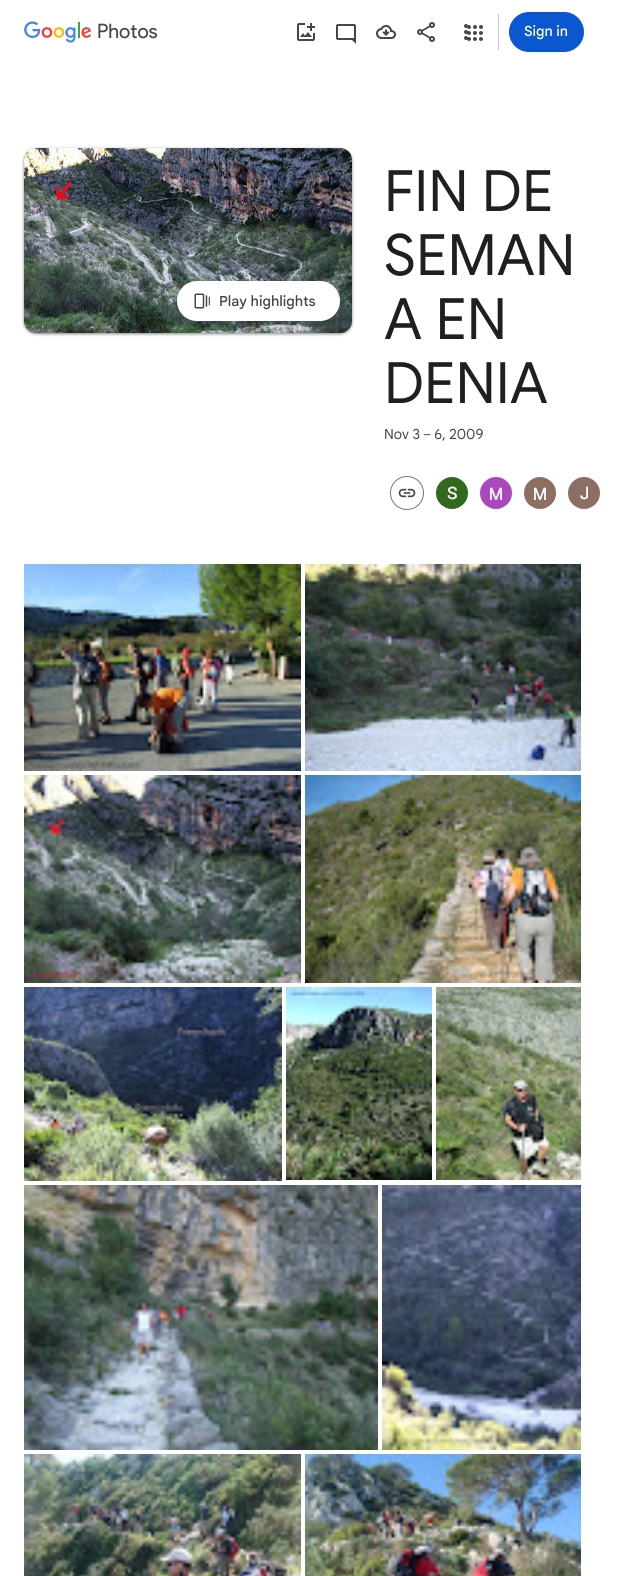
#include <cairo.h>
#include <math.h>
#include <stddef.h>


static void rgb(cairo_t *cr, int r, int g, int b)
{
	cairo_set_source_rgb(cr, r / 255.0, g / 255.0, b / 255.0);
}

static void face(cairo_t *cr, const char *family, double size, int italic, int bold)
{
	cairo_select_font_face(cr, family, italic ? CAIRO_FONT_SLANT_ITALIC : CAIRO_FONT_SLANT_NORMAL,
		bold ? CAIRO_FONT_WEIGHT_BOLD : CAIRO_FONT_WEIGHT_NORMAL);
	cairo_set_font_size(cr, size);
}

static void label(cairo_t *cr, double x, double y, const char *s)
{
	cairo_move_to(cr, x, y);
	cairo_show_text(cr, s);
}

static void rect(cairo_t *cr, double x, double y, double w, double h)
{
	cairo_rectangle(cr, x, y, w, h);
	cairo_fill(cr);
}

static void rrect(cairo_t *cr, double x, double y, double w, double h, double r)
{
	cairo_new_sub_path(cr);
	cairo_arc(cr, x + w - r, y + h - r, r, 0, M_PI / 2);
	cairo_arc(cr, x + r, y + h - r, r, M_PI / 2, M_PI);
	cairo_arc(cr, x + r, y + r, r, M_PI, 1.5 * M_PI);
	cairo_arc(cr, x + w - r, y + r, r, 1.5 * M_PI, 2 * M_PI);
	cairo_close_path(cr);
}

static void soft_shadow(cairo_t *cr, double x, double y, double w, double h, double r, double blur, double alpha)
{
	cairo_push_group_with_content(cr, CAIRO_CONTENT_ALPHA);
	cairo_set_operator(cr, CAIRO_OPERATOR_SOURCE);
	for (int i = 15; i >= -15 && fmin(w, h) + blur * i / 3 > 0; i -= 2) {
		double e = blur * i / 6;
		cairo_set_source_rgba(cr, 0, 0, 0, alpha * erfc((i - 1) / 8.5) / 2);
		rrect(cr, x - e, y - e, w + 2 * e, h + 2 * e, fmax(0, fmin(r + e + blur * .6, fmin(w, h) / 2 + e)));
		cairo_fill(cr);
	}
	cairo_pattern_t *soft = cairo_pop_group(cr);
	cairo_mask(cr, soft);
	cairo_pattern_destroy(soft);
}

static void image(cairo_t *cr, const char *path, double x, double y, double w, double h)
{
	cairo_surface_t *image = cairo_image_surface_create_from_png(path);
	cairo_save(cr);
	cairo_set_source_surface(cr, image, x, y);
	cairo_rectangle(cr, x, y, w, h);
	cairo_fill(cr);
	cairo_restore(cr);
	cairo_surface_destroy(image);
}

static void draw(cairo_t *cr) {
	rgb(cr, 255, 255, 255);
	cairo_paint(cr);
	image(cr, "image0.png", 24, 21, 68, 22);
	face(cr, "Product Sans", 20, 0, 0);
	rgb(cr, 68, 71, 70);
	label(cr, 97, 38, "Photos");
	image(cr, "image1.png", 297, 23, 18, 18);
	image(cr, "image2.png", 336, 24, 20, 20);
	image(cr, "image3.png", 376, 25, 20, 14);
	image(cr, "image4.png", 417, 22, 18, 20);
	image(cr, "image5.png", 464, 24, 4, 16);
	rgb(cr, 196, 199, 197);
	rect(cr, 498, 14, 1, 36);
	rgb(cr, 0, 0, 0);
	soft_shadow(cr, 23, 148, 330, 187, 13, 1.5, 0.15);
	soft_shadow(cr, 24, 149, 328, 185, 12, 1, 0.3);
	image(cr, "image6.png", 24, 148, 328, 185);
	rgb(cr, 255, 255, 255);
	rrect(cr, 177, 281, 163, 40, 20);
	cairo_fill(cr);
	image(cr, "image7.png", 194, 293, 16, 16);
	face(cr, "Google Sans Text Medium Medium", 14, 0, 0);
	rgb(cr, 68, 71, 70);
	label(cr, 219, 306, "Play highlights");
	face(cr, "Google Sans", 57, 0, 0);
	rgb(cr, 31, 31, 31);
	label(cr, 384, 211, "FIN DE");
	label(cr, 384, 275, "SEMAN");
	label(cr, 384, 339, "A EN");
	label(cr, 384, 403, "DENIA");
	face(cr, "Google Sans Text", 14, 0, 0);
	rgb(cr, 68, 71, 70);
	label(cr, 384, 439, "Nov 3 – 6, 2009");
	cairo_new_path(cr);
	cairo_arc(cr, 407, 493, 16.5, 0, 2 * M_PI);
	rgb(cr, 116, 119, 117);
	cairo_set_line_width(cr, 1);
	cairo_stroke(cr);
	image(cr, "image8.png", 398, 488, 18, 10);
	image(cr, "image9.png", 436, 477, 32, 32);
	image(cr, "image10.png", 480, 477, 32, 32);
	image(cr, "image11.png", 524, 477, 32, 32);
	image(cr, "image12.png", 568, 477, 32, 32);
	image(cr, "image13.png", 24, 564, 277, 207);
	image(cr, "image14.png", 305, 564, 276, 207);
	image(cr, "image15.png", 24, 775, 277, 208);
	image(cr, "image16.png", 305, 775, 276, 208);
	image(cr, "image17.png", 24, 987, 258, 194);
	image(cr, "image18.png", 286, 987, 146, 193);
	image(cr, "image19.png", 436, 987, 145, 193);
	image(cr, "image20.png", 24, 1185, 354, 265);
	image(cr, "image21.png", 382, 1185, 199, 265);
	image(cr, "image22.png", 24, 1454, 277, 122);
	image(cr, "image23.png", 305, 1454, 276, 122);
	image(cr, "image24.png", 467, 25, 16, 16);
	rgb(cr, 11, 87, 208);
	rrect(cr, 509, 12, 75, 40, 20);
	cairo_fill(cr);
	face(cr, "Google Sans Text Medium Medium", 14, 0, 0);
	rgb(cr, 255, 255, 255);
	label(cr, 524, 36, "Sign in");
}

int main(void) {
	cairo_surface_t *surface = cairo_image_surface_create(CAIRO_FORMAT_RGB24, 620, 1576);
	cairo_t *cr = cairo_create(surface);
	cairo_font_options_t *options = cairo_font_options_create();
	cairo_font_options_set_hint_metrics(options, CAIRO_HINT_METRICS_OFF);
	cairo_font_options_set_hint_style(options, CAIRO_HINT_STYLE_NONE);
	cairo_set_font_options(cr, options);
	cairo_set_miter_limit(cr, 4);
	draw(cr);
	cairo_surface_write_to_png(surface, "render.png");
	cairo_font_options_destroy(options);
	cairo_destroy(cr);
	cairo_surface_destroy(surface);
	return 0;
}
